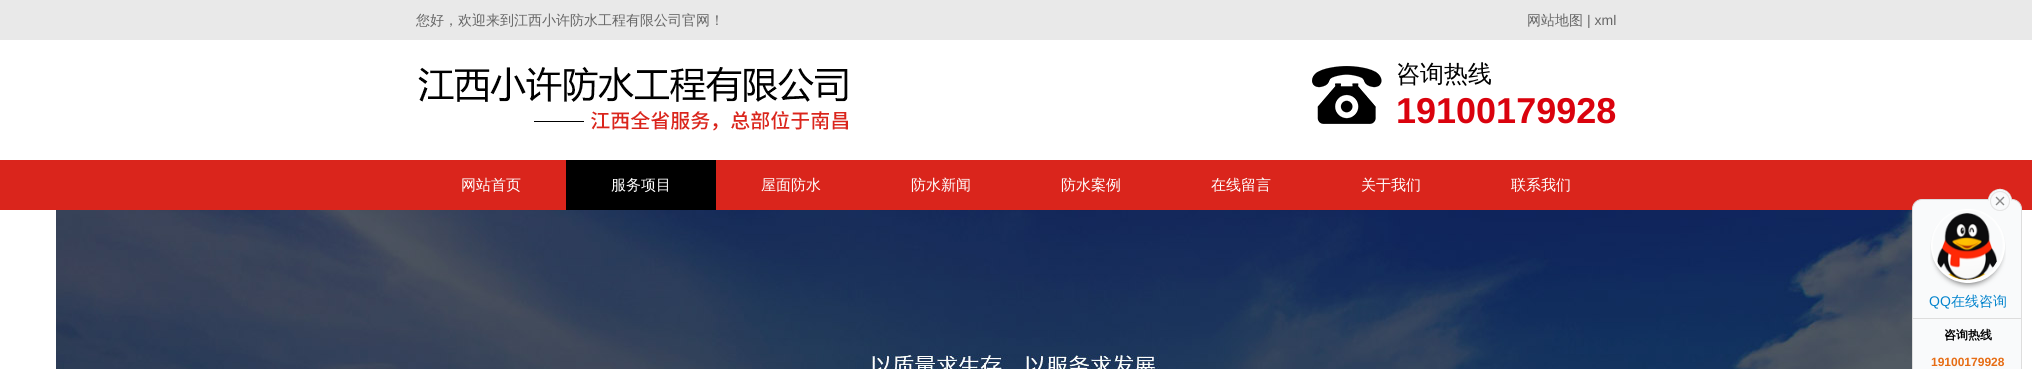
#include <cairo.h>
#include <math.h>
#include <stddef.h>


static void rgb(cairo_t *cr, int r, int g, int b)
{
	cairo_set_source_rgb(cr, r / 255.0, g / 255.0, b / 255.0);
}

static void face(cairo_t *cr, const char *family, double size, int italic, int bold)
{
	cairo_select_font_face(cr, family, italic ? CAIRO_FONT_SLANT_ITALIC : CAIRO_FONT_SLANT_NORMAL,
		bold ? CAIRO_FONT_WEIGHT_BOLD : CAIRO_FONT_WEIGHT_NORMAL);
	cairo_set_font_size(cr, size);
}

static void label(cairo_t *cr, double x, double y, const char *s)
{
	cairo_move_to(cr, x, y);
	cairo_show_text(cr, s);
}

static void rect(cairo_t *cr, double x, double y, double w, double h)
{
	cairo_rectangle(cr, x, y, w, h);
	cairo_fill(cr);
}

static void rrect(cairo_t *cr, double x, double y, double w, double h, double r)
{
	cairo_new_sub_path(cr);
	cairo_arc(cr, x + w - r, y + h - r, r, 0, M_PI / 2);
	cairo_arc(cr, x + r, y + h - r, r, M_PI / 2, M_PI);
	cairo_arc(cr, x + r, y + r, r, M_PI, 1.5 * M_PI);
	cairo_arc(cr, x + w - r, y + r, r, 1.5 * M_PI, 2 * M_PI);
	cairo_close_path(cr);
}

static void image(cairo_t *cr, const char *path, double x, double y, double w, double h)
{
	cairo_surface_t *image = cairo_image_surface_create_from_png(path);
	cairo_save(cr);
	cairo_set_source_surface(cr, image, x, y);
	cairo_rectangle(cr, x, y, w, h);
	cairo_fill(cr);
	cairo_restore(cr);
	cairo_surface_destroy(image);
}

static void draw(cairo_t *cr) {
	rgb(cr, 255, 255, 255);
	cairo_paint(cr);
	rgb(cr, 233, 233, 233);
	rect(cr, 0, 0, 2032, 40);
	face(cr, "WenQuanYi Zen Hei Medium", 14, 0, 0);
	rgb(cr, 102, 102, 102);
	label(cr, 416, 25, "您好，欢迎来到江西小许防水工程有限公司官网！");
	label(cr, 1527, 25, "网站地图");
	face(cr, "Liberation Sans", 14, 0, 0);
	label(cr, 1587, 25, "| xml");
	image(cr, "image0.png", 418, 66, 430, 65);
	image(cr, "image1.png", 1312, 66, 70, 58);
	face(cr, "WenQuanYi Zen Hei Medium", 24, 0, 0);
	rgb(cr, 0, 0, 0);
	label(cr, 1396, 82, "咨询热线");
	face(cr, "Liberation Sans", 36, 0, 1);
	rgb(cr, 218, 2, 13);
	label(cr, 1396, 123, "19100179928");
	rgb(cr, 218, 37, 28);
	rect(cr, 0, 160, 2032, 50);
	face(cr, "WenQuanYi Zen Hei Medium", 15, 0, 0);
	rgb(cr, 255, 255, 255);
	label(cr, 461, 190, "网站首页");
	rgb(cr, 0, 0, 0);
	rect(cr, 566, 160, 150, 50);
	rgb(cr, 255, 255, 255);
	label(cr, 611, 190, "服务项目");
	label(cr, 761, 190, "屋面防水");
	label(cr, 911, 190, "防水新闻");
	label(cr, 1061, 190, "防水案例");
	label(cr, 1211, 190, "在线留言");
	label(cr, 1361, 190, "关于我们");
	label(cr, 1511, 190, "联系我们");
	image(cr, "image2.png", 56, 210, 1856, 159);
	rgb(cr, 249, 250, 251);
	rrect(cr, 1912.5, 199.5, 109, 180, 9.5);
	cairo_fill_preserve(cr);
	rgb(cr, 221, 221, 221);
	cairo_set_line_width(cr, 1);
	cairo_stroke(cr);
	image(cr, "image5.png", 1937, 213, 60, 67);
	image(cr, "image4.png", 1930, 209, 76, 80);
	image(cr, "image3.png", 1988, 188, 24, 23);
	rect(cr, 1913, 318, 109, 1);
	face(cr, "Liberation Sans", 14, 0, 0);
	rgb(cr, 4, 132, 205);
	label(cr, 1929, 306, "QQ");
	face(cr, "WenQuanYi Zen Hei Medium", 14, 0, 0);
	label(cr, 1951, 306, "在线咨询");
	face(cr, "WenQuanYi Zen Hei", 12, 0, 1);
	rgb(cr, 0, 0, 0);
	label(cr, 1944, 339, "咨询热线");
	face(cr, "Liberation Sans", 12, 0, 1);
	rgb(cr, 230, 109, 21);
	label(cr, 1931, 366, "19100179928");
}

int main(void) {
	cairo_surface_t *surface = cairo_image_surface_create(CAIRO_FORMAT_RGB24, 2032, 369);
	cairo_t *cr = cairo_create(surface);
	cairo_font_options_t *options = cairo_font_options_create();
	cairo_font_options_set_hint_metrics(options, CAIRO_HINT_METRICS_OFF);
	cairo_font_options_set_hint_style(options, CAIRO_HINT_STYLE_NONE);
	cairo_set_font_options(cr, options);
	cairo_set_miter_limit(cr, 4);
	draw(cr);
	cairo_surface_write_to_png(surface, "render.png");
	cairo_font_options_destroy(options);
	cairo_destroy(cr);
	cairo_surface_destroy(surface);
	return 0;
}
